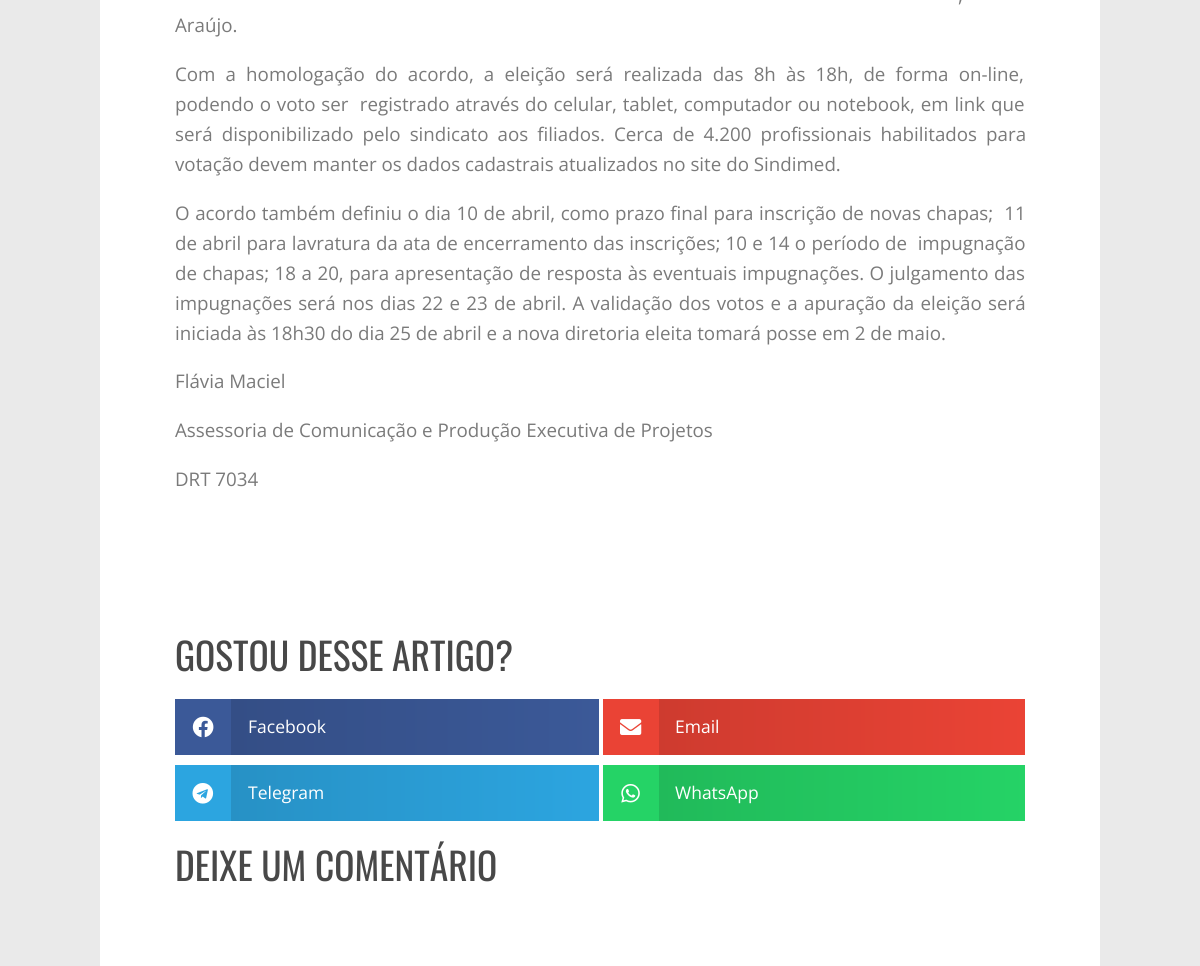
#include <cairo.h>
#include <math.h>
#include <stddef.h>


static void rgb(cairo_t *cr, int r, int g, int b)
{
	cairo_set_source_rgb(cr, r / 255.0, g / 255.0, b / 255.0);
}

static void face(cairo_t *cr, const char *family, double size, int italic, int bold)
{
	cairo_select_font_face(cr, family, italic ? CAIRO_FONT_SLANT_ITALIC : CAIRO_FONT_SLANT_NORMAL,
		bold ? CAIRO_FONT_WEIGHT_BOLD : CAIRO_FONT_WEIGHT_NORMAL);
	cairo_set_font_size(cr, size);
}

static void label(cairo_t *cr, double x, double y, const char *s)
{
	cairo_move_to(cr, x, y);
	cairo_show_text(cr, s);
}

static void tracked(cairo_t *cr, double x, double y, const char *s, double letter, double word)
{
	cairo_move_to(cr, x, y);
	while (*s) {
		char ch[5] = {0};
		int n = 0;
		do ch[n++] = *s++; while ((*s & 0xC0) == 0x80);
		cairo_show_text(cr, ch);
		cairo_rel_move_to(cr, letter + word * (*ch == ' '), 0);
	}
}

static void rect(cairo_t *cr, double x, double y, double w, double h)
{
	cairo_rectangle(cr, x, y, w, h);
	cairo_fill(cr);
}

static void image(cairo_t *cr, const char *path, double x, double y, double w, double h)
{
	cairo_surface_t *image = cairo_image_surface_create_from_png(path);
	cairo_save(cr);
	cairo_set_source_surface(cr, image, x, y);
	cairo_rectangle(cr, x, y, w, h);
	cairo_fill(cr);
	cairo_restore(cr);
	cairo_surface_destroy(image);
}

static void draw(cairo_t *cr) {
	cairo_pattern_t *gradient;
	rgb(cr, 234, 234, 234);
	cairo_paint(cr);
	rgb(cr, 255, 255, 255);
	rect(cr, 100, 0, 1000, 966);
	face(cr, "Open Sans", 18.75, 0, 0);
	rgb(cr, 122, 122, 122);
	tracked(cr, 958, 2, ",", 0, 2);
	label(cr, 175, 32, "Araújo.");
	tracked(cr, 175, 81, "Com a homologação do acordo, a eleição será realizada das 8h às 18h, de forma on-line,", 0, 5.25);
	tracked(cr, 175, 111, "podendo o voto ser  registrado através do celular, tablet, computador ou notebook, em link que", 0, 0.9);
	tracked(cr, 175, 141, "será disponibilizado pelo sindicato aos filiados. Cerca de 4.200 profissionais habilitados para", 0, 4.25);
	label(cr, 175, 171, "votação devem manter os dados cadastrais atualizados no site do Sindimed.");
	tracked(cr, 175, 220, "O acordo também definiu o dia 10 de abril, como prazo final para inscrição de novas chapas;  11", 0, 0.7);
	tracked(cr, 175, 250, "de abril para lavratura da ata de encerramento das inscrições; 10 e 14 o período de  impugnação", 0, 0.4);
	tracked(cr, 175, 280, "de chapas; 18 a 20, para apresentação de resposta às eventuais impugnações. O julgamento das", 0, 0.6);
	tracked(cr, 175, 310, "impugnações será nos dias 22 e 23 de abril. A validação dos votos e a apuração da eleição será", 0, 1.4);
	label(cr, 175, 340, "iniciada às 18h30 do dia 25 de abril e a nova diretoria eleita tomará posse em 2 de maio.");
	label(cr, 175, 388, "Flávia Maciel");
	label(cr, 175, 437, "Assessoria de Comunicação e Produção Executiva de Projetos");
	label(cr, 175, 486, "DRT 7034");
	face(cr, "Oswald", 37.5, 0, 0);
	rgb(cr, 72, 72, 72);
	label(cr, 175, 671, "GOSTOU DESSE ARTIGO?");
	rgb(cr, 59, 89, 152);
	rect(cr, 175, 699, 56, 56);
	image(cr, "image0.png", 192, 716, 22, 22);
	gradient = cairo_pattern_create_linear(231, 727, 599, 727);
	cairo_pattern_add_color_stop_rgba(gradient, 0, 0.204, 0.306, 0.525, 1);
	cairo_pattern_add_color_stop_rgba(gradient, 1, 0.231, 0.349, 0.596, 1);
	cairo_set_source(cr, gradient);
	cairo_pattern_destroy(gradient);
	rect(cr, 231, 699, 368, 56);
	face(cr, "Open Sans", 17.5, 0, 0);
	rgb(cr, 255, 255, 255);
	label(cr, 248, 733, "Facebook");
	rgb(cr, 234, 67, 53);
	rect(cr, 603, 699, 56, 56);
	image(cr, "image1.png", 620, 719, 22, 16);
	gradient = cairo_pattern_create_linear(659, 727, 1025, 727);
	cairo_pattern_add_color_stop_rgba(gradient, 0, 0.808, 0.231, 0.184, 1);
	cairo_pattern_add_color_stop_rgba(gradient, 1, 0.918, 0.263, 0.208, 1);
	cairo_set_source(cr, gradient);
	cairo_pattern_destroy(gradient);
	rect(cr, 659, 699, 366, 56);
	rgb(cr, 255, 255, 255);
	label(cr, 675, 733, "Email");
	rgb(cr, 44, 165, 224);
	rect(cr, 175, 765, 56, 56);
	image(cr, "image2.png", 192, 783, 22, 21);
	gradient = cairo_pattern_create_linear(231, 793, 599, 793);
	cairo_pattern_add_color_stop_rgba(gradient, 0, 0.153, 0.569, 0.773, 1);
	cairo_pattern_add_color_stop_rgba(gradient, 1, 0.173, 0.647, 0.878, 1);
	cairo_set_source(cr, gradient);
	cairo_pattern_destroy(gradient);
	rect(cr, 231, 765, 368, 56);
	rgb(cr, 255, 255, 255);
	label(cr, 248, 799, "Telegram");
	rgb(cr, 37, 211, 102);
	rect(cr, 603, 765, 56, 56);
	image(cr, "image3.png", 621, 784, 19, 19);
	gradient = cairo_pattern_create_linear(659, 793, 1025, 793);
	cairo_pattern_add_color_stop_rgba(gradient, 0, 0.129, 0.729, 0.353, 1);
	cairo_pattern_add_color_stop_rgba(gradient, 1, 0.145, 0.827, 0.4, 1);
	cairo_set_source(cr, gradient);
	cairo_pattern_destroy(gradient);
	rect(cr, 659, 765, 366, 56);
	rgb(cr, 255, 255, 255);
	label(cr, 675, 799, "WhatsApp");
	face(cr, "Oswald", 37.5, 0, 0);
	rgb(cr, 72, 72, 72);
	label(cr, 175, 881, "DEIXE UM COMENTÁRIO");
}

int main(void) {
	cairo_surface_t *surface = cairo_image_surface_create(CAIRO_FORMAT_RGB24, 1200, 966);
	cairo_t *cr = cairo_create(surface);
	cairo_font_options_t *options = cairo_font_options_create();
	cairo_font_options_set_hint_metrics(options, CAIRO_HINT_METRICS_OFF);
	cairo_font_options_set_hint_style(options, CAIRO_HINT_STYLE_NONE);
	cairo_set_font_options(cr, options);
	cairo_set_miter_limit(cr, 4);
	draw(cr);
	cairo_surface_write_to_png(surface, "render.png");
	cairo_font_options_destroy(options);
	cairo_destroy(cr);
	cairo_surface_destroy(surface);
	return 0;
}
